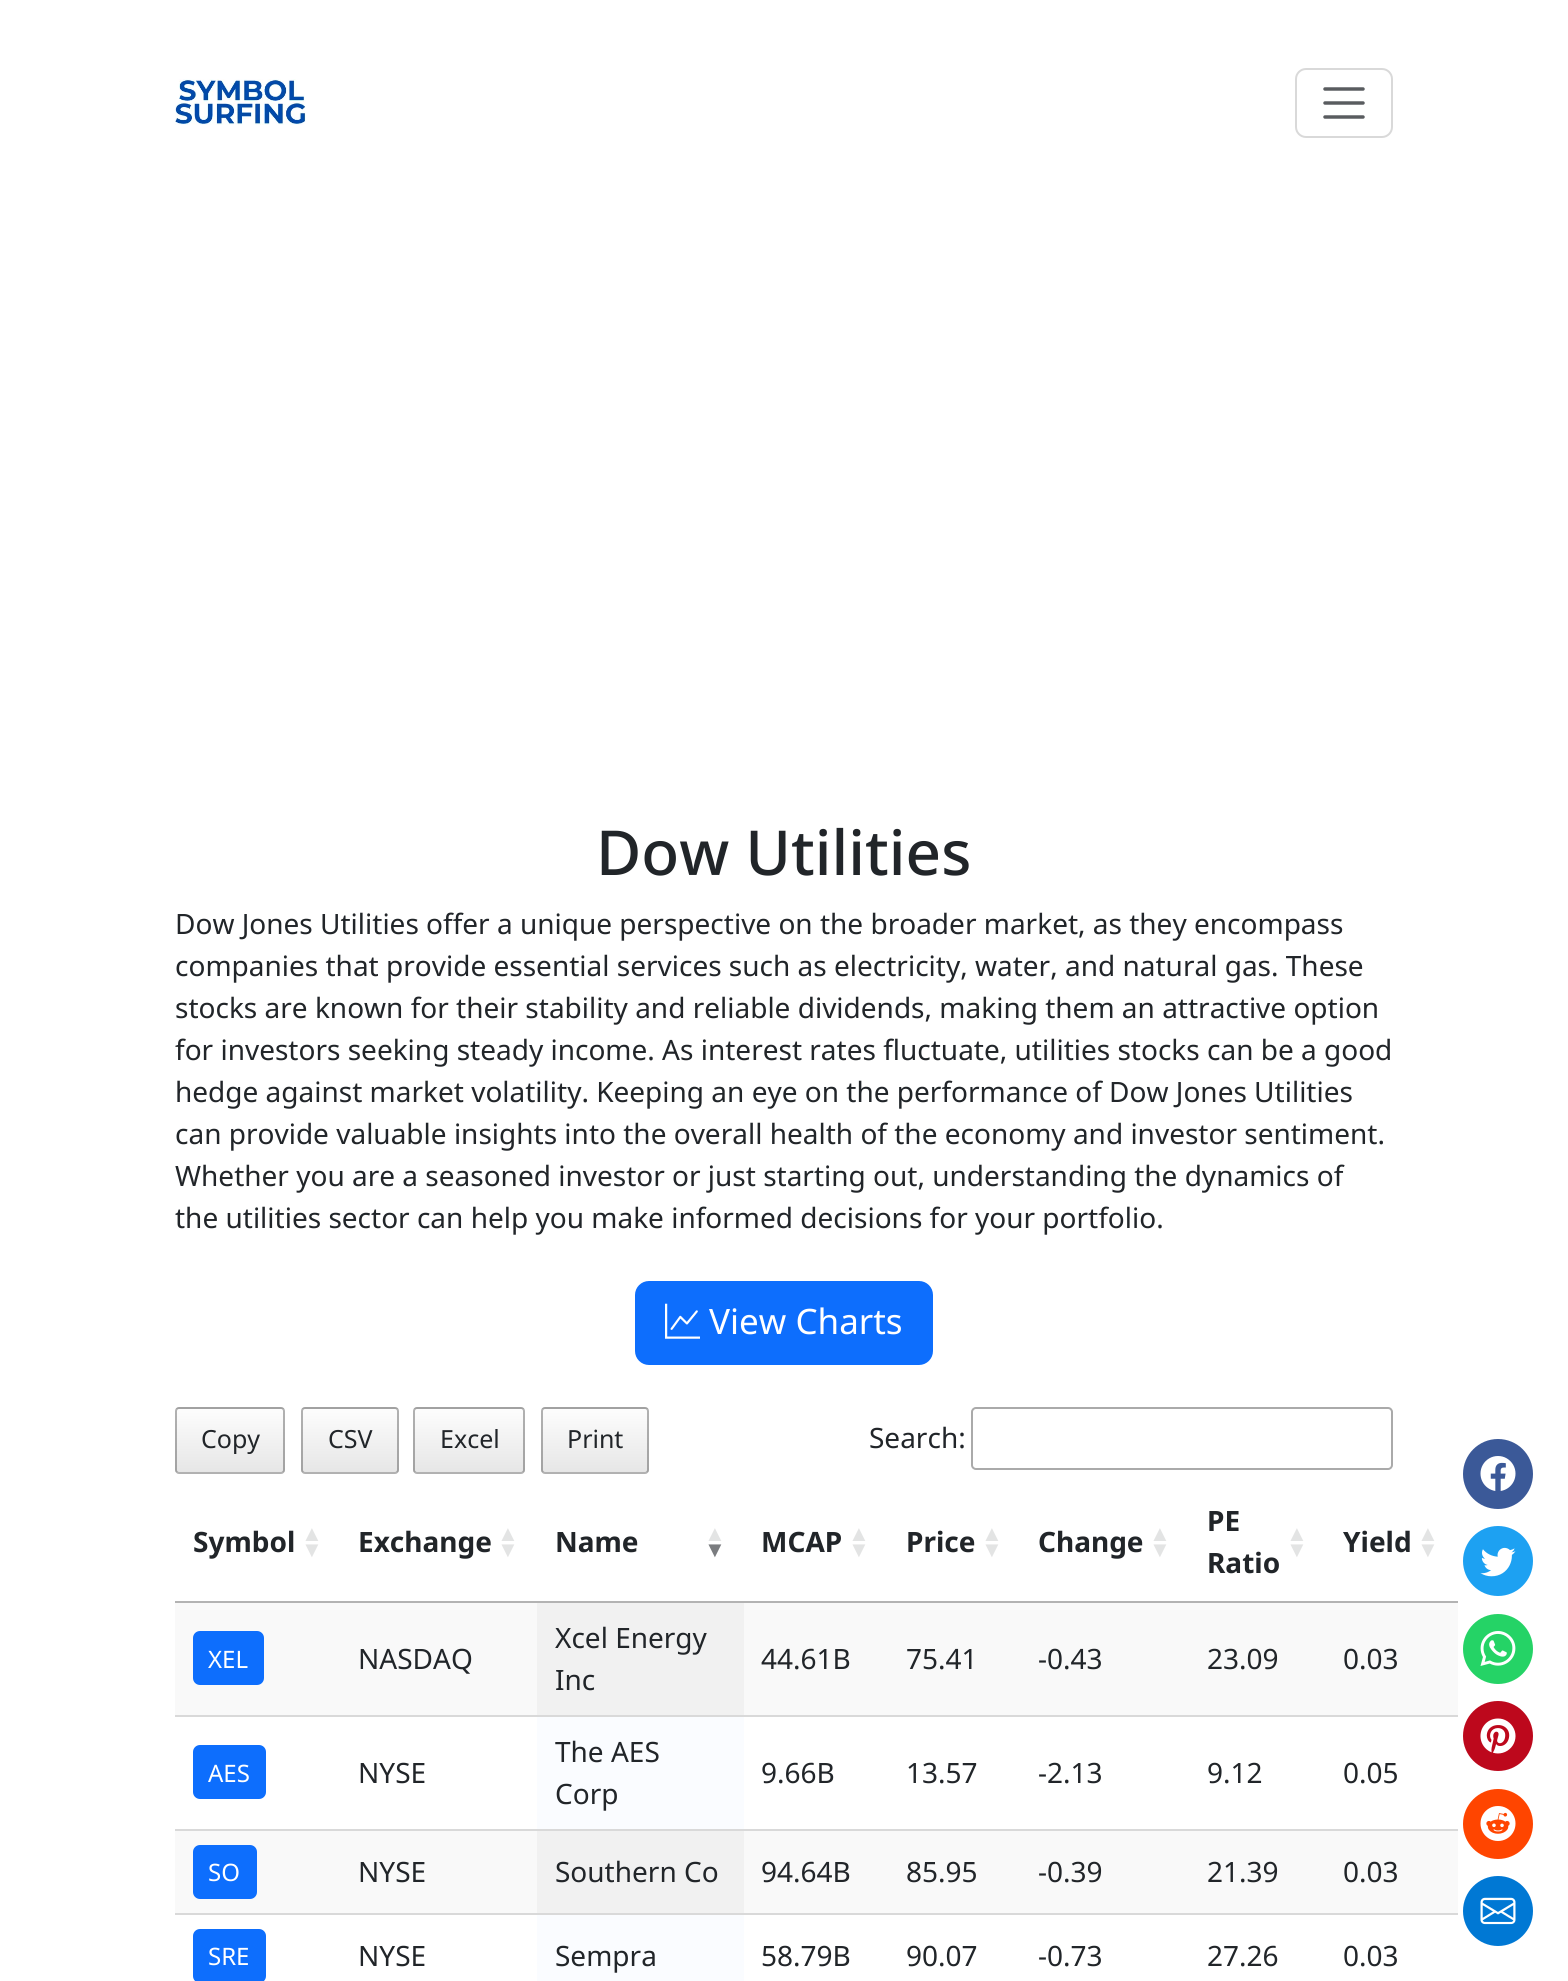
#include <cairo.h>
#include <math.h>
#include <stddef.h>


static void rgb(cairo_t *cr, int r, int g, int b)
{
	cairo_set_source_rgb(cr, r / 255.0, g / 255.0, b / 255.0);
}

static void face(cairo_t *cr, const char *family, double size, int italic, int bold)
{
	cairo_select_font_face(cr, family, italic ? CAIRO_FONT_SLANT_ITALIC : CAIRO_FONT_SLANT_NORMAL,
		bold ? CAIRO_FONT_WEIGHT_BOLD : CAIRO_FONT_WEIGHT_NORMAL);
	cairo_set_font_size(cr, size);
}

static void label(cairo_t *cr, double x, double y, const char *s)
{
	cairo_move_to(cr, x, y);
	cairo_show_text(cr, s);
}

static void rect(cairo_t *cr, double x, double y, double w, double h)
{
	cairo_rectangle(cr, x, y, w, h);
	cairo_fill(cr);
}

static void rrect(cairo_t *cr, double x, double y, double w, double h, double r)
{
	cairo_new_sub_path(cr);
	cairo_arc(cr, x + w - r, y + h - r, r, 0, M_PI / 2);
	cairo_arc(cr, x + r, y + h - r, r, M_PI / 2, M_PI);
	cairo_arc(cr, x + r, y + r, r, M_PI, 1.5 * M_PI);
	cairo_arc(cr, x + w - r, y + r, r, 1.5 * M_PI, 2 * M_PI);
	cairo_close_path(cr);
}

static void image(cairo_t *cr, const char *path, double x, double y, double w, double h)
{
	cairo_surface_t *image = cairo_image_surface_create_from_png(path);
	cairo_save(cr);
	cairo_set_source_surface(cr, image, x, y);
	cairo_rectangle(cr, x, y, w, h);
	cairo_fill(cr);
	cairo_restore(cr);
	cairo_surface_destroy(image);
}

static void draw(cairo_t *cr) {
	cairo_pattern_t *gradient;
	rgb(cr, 255, 255, 255);
	cairo_paint(cr);
	image(cr, "image0.png", 175, 79, 131, 46);
	rrect(cr, 1296, 69, 96, 68, 10);
	rgb(cr, 217, 217, 217);
	cairo_stroke(cr);
	cairo_new_path(cr);
	cairo_move_to(cr, 1325, 89);
	cairo_line_to(cr, 1363, 89);
	cairo_move_to(cr, 1325, 103);
	cairo_line_to(cr, 1363, 103);
	cairo_move_to(cr, 1325, 117);
	cairo_line_to(cr, 1363, 117);
	rgb(cr, 89, 92, 95);
	cairo_set_line_width(cr, 3.5);
	cairo_set_line_cap(cr, CAIRO_LINE_CAP_ROUND);
	cairo_stroke(cr);
	face(cr, "Noto Sans Medium", 62, 0, 0);
	rgb(cr, 33, 37, 41);
	label(cr, 596, 875, "Dow Utilities");
	face(cr, "Noto Sans", 28, 0, 0);
	label(cr, 175, 934, "Dow Jones Utilities offer a unique perspective on the broader market, as they encompass");
	label(cr, 175, 976, "companies that provide essential services such as electricity, water, and natural gas. These");
	label(cr, 175, 1018, "stocks are known for their stability and reliable dividends, making them an attractive option");
	label(cr, 175, 1060, "for investors seeking steady income. As interest rates fluctuate, utilities stocks can be a good");
	label(cr, 175, 1102, "hedge against market volatility. Keeping an eye on the performance of Dow Jones Utilities");
	label(cr, 175, 1144, "can provide valuable insights into the overall health of the economy and investor sentiment.");
	label(cr, 175, 1186, "Whether you are a seasoned investor or just starting out, understanding the dynamics of");
	label(cr, 175, 1228, "the utilities sector can help you make informed decisions for your portfolio.");
	rgb(cr, 13, 110, 253);
	rrect(cr, 636, 1282, 296, 82, 13);
	cairo_fill_preserve(cr);
	cairo_set_line_width(cr, 2);
	cairo_set_line_cap(cr, CAIRO_LINE_CAP_BUTT);
	cairo_stroke(cr);
	image(cr, "image1.png", 665, 1303, 35, 36);
	face(cr, "Noto Sans", 35, 0, 0);
	rgb(cr, 255, 255, 255);
	label(cr, 709, 1334, "View Charts");
	cairo_save(cr);
	rrect(cr, 175, 1407, 110, 67, 4);
	cairo_clip(cr);
	gradient = cairo_pattern_create_linear(230, 1346, 230, 1409);
	cairo_pattern_add_color_stop_rgba(gradient, 0, 0.992, 0.992, 0.992, 1);
	cairo_pattern_add_color_stop_rgba(gradient, 1, 0.902, 0.902, 0.902, 1);
	cairo_set_source(cr, gradient);
	cairo_pattern_destroy(gradient);
	rect(cr, 175, 1407, 110, 2);
	gradient = cairo_pattern_create_linear(230, 1409, 230, 1472);
	cairo_pattern_add_color_stop_rgba(gradient, 0, 0.992, 0.992, 0.992, 1);
	cairo_pattern_add_color_stop_rgba(gradient, 1, 0.902, 0.902, 0.902, 1);
	cairo_set_source(cr, gradient);
	cairo_pattern_destroy(gradient);
	rect(cr, 175, 1409, 110, 63);
	gradient = cairo_pattern_create_linear(230, 1472, 230, 1535);
	cairo_pattern_add_color_stop_rgba(gradient, 0, 0.992, 0.992, 0.992, 1);
	cairo_pattern_add_color_stop_rgba(gradient, 1, 0.902, 0.902, 0.902, 1);
	cairo_set_source(cr, gradient);
	cairo_pattern_destroy(gradient);
	rect(cr, 175, 1472, 110, 2);
	cairo_restore(cr);
	rrect(cr, 176, 1408, 108, 65, 3);
	cairo_set_source_rgba(cr, 0, 0, 0, 0.3);
	cairo_stroke(cr);
	face(cr, "Noto Sans", 25, 0, 0);
	rgb(cr, 33, 37, 41);
	label(cr, 201, 1448, "Copy");
	cairo_save(cr);
	rrect(cr, 301, 1407, 98, 67, 4);
	cairo_clip(cr);
	gradient = cairo_pattern_create_linear(350, 1346, 350, 1409);
	cairo_pattern_add_color_stop_rgba(gradient, 0, 0.992, 0.992, 0.992, 1);
	cairo_pattern_add_color_stop_rgba(gradient, 1, 0.902, 0.902, 0.902, 1);
	cairo_set_source(cr, gradient);
	cairo_pattern_destroy(gradient);
	rect(cr, 301, 1407, 98, 2);
	gradient = cairo_pattern_create_linear(350, 1409, 350, 1472);
	cairo_pattern_add_color_stop_rgba(gradient, 0, 0.992, 0.992, 0.992, 1);
	cairo_pattern_add_color_stop_rgba(gradient, 1, 0.902, 0.902, 0.902, 1);
	cairo_set_source(cr, gradient);
	cairo_pattern_destroy(gradient);
	rect(cr, 301, 1409, 98, 63);
	gradient = cairo_pattern_create_linear(350, 1472, 350, 1535);
	cairo_pattern_add_color_stop_rgba(gradient, 0, 0.992, 0.992, 0.992, 1);
	cairo_pattern_add_color_stop_rgba(gradient, 1, 0.902, 0.902, 0.902, 1);
	cairo_set_source(cr, gradient);
	cairo_pattern_destroy(gradient);
	rect(cr, 301, 1472, 98, 2);
	cairo_restore(cr);
	rrect(cr, 302, 1408, 96, 65, 3);
	cairo_set_source_rgba(cr, 0, 0, 0, 0.3);
	cairo_stroke(cr);
	rgb(cr, 33, 37, 41);
	label(cr, 328, 1448, "CSV");
	cairo_save(cr);
	rrect(cr, 413, 1407, 112, 67, 4);
	cairo_clip(cr);
	gradient = cairo_pattern_create_linear(469, 1346, 469, 1409);
	cairo_pattern_add_color_stop_rgba(gradient, 0, 0.992, 0.992, 0.992, 1);
	cairo_pattern_add_color_stop_rgba(gradient, 1, 0.902, 0.902, 0.902, 1);
	cairo_set_source(cr, gradient);
	cairo_pattern_destroy(gradient);
	rect(cr, 413, 1407, 112, 2);
	gradient = cairo_pattern_create_linear(469, 1409, 469, 1472);
	cairo_pattern_add_color_stop_rgba(gradient, 0, 0.992, 0.992, 0.992, 1);
	cairo_pattern_add_color_stop_rgba(gradient, 1, 0.902, 0.902, 0.902, 1);
	cairo_set_source(cr, gradient);
	cairo_pattern_destroy(gradient);
	rect(cr, 413, 1409, 112, 63);
	gradient = cairo_pattern_create_linear(469, 1472, 469, 1535);
	cairo_pattern_add_color_stop_rgba(gradient, 0, 0.992, 0.992, 0.992, 1);
	cairo_pattern_add_color_stop_rgba(gradient, 1, 0.902, 0.902, 0.902, 1);
	cairo_set_source(cr, gradient);
	cairo_pattern_destroy(gradient);
	rect(cr, 413, 1472, 112, 2);
	cairo_restore(cr);
	rrect(cr, 414, 1408, 110, 65, 3);
	cairo_set_source_rgba(cr, 0, 0, 0, 0.3);
	cairo_stroke(cr);
	rgb(cr, 33, 37, 41);
	label(cr, 440, 1448, "Excel");
	cairo_save(cr);
	rrect(cr, 541, 1407, 108, 67, 4);
	cairo_clip(cr);
	gradient = cairo_pattern_create_linear(595, 1346, 595, 1409);
	cairo_pattern_add_color_stop_rgba(gradient, 0, 0.992, 0.992, 0.992, 1);
	cairo_pattern_add_color_stop_rgba(gradient, 1, 0.902, 0.902, 0.902, 1);
	cairo_set_source(cr, gradient);
	cairo_pattern_destroy(gradient);
	rect(cr, 541, 1407, 108, 2);
	gradient = cairo_pattern_create_linear(595, 1409, 595, 1472);
	cairo_pattern_add_color_stop_rgba(gradient, 0, 0.992, 0.992, 0.992, 1);
	cairo_pattern_add_color_stop_rgba(gradient, 1, 0.902, 0.902, 0.902, 1);
	cairo_set_source(cr, gradient);
	cairo_pattern_destroy(gradient);
	rect(cr, 541, 1409, 108, 63);
	gradient = cairo_pattern_create_linear(595, 1472, 595, 1535);
	cairo_pattern_add_color_stop_rgba(gradient, 0, 0.992, 0.992, 0.992, 1);
	cairo_pattern_add_color_stop_rgba(gradient, 1, 0.902, 0.902, 0.902, 1);
	cairo_set_source(cr, gradient);
	cairo_pattern_destroy(gradient);
	rect(cr, 541, 1472, 108, 2);
	cairo_restore(cr);
	rrect(cr, 542, 1408, 106, 65, 3);
	cairo_set_source_rgba(cr, 0, 0, 0, 0.3);
	cairo_stroke(cr);
	rgb(cr, 33, 37, 41);
	label(cr, 567, 1448, "Print");
	face(cr, "Noto Sans", 28, 0, 0);
	label(cr, 869, 1448, "Search:");
	rrect(cr, 972, 1408, 420, 61, 4);
	rgb(cr, 170, 170, 170);
	cairo_stroke(cr);
	rgb(cr, 179, 179, 179);
	rect(cr, 175, 1601, 1283, 2);
	face(cr, "Noto Sans", 28, 0, 1);
	rgb(cr, 33, 37, 41);
	label(cr, 193, 1552, "Symbol");
	face(cr, "Liberation Sans", 22, 0, 1);
	rgb(cr, 227, 228, 228);
	label(cr, 301, 1541, "▲");
	label(cr, 301, 1557, "▼");
	face(cr, "Noto Sans", 28, 0, 1);
	rgb(cr, 33, 37, 41);
	label(cr, 358, 1552, "Exchange");
	face(cr, "Liberation Sans", 22, 0, 1);
	rgb(cr, 227, 228, 228);
	label(cr, 497, 1541, "▲");
	label(cr, 497, 1557, "▼");
	face(cr, "Noto Sans", 28, 0, 1);
	rgb(cr, 33, 37, 41);
	label(cr, 555, 1552, "Name");
	face(cr, "Liberation Sans", 22, 0, 1);
	rgb(cr, 227, 228, 228);
	label(cr, 704, 1541, "▲");
	rgb(cr, 122, 124, 127);
	label(cr, 704, 1557, "▼");
	face(cr, "Noto Sans", 28, 0, 1);
	rgb(cr, 33, 37, 41);
	label(cr, 761, 1552, "MCAP");
	face(cr, "Liberation Sans", 22, 0, 1);
	rgb(cr, 227, 228, 228);
	label(cr, 848, 1541, "▲");
	label(cr, 848, 1557, "▼");
	face(cr, "Noto Sans", 28, 0, 1);
	rgb(cr, 33, 37, 41);
	label(cr, 906, 1552, "Price");
	face(cr, "Liberation Sans", 22, 0, 1);
	rgb(cr, 227, 228, 228);
	label(cr, 981, 1541, "▲");
	label(cr, 981, 1557, "▼");
	face(cr, "Noto Sans", 28, 0, 1);
	rgb(cr, 33, 37, 41);
	label(cr, 1038, 1552, "Change");
	face(cr, "Liberation Sans", 22, 0, 1);
	rgb(cr, 227, 228, 228);
	label(cr, 1149, 1541, "▲");
	label(cr, 1149, 1557, "▼");
	face(cr, "Noto Sans", 28, 0, 1);
	rgb(cr, 33, 37, 41);
	label(cr, 1207, 1531, "PE");
	face(cr, "Liberation Sans", 22, 0, 1);
	rgb(cr, 227, 228, 228);
	label(cr, 1286, 1541, "▲");
	face(cr, "Noto Sans", 28, 0, 1);
	rgb(cr, 33, 37, 41);
	label(cr, 1207, 1573, "Ratio");
	face(cr, "Liberation Sans", 22, 0, 1);
	rgb(cr, 227, 228, 228);
	label(cr, 1286, 1557, "▼");
	face(cr, "Noto Sans", 28, 0, 1);
	rgb(cr, 33, 37, 41);
	label(cr, 1343, 1552, "Yield");
	face(cr, "Liberation Sans", 22, 0, 1);
	rgb(cr, 227, 228, 228);
	label(cr, 1417, 1541, "▲");
	label(cr, 1417, 1557, "▼");
	rgb(cr, 249, 249, 249);
	rect(cr, 175, 1603, 362, 112);
	rgb(cr, 13, 110, 253);
	rrect(cr, 194, 1632, 69, 52, 6);
	cairo_fill_preserve(cr);
	cairo_stroke(cr);
	face(cr, "Noto Sans", 24, 0, 0);
	rgb(cr, 255, 255, 255);
	label(cr, 208, 1668, "XEL");
	face(cr, "Noto Sans", 28, 0, 0);
	rgb(cr, 33, 37, 41);
	label(cr, 358, 1669, "NASDAQ");
	rgb(cr, 241, 241, 241);
	rect(cr, 537, 1603, 207, 112);
	rgb(cr, 33, 37, 41);
	label(cr, 555, 1648, "Xcel Energy");
	label(cr, 555, 1690, "Inc");
	rgb(cr, 249, 249, 249);
	rect(cr, 744, 1603, 714, 112);
	rgb(cr, 33, 37, 41);
	label(cr, 761, 1669, "44.61B");
	label(cr, 906, 1669, "75.41");
	label(cr, 1038, 1669, "-0.43");
	label(cr, 1207, 1669, "23.09");
	label(cr, 1343, 1669, "0.03");
	rgb(cr, 217, 217, 217);
	rect(cr, 175, 1715, 1283, 2);
	rgb(cr, 13, 110, 253);
	rrect(cr, 194, 1746, 71, 52, 6);
	cairo_fill_preserve(cr);
	cairo_stroke(cr);
	face(cr, "Noto Sans", 24, 0, 0);
	rgb(cr, 255, 255, 255);
	label(cr, 208, 1782, "AES");
	face(cr, "Noto Sans", 28, 0, 0);
	rgb(cr, 33, 37, 41);
	label(cr, 358, 1783, "NYSE");
	rgb(cr, 250, 252, 255);
	rect(cr, 537, 1717, 207, 112);
	rgb(cr, 33, 37, 41);
	label(cr, 555, 1762, "The AES");
	label(cr, 555, 1804, "Corp");
	label(cr, 761, 1783, "9.66B");
	label(cr, 906, 1783, "13.57");
	label(cr, 1038, 1783, "-2.13");
	label(cr, 1207, 1783, "9.12");
	label(cr, 1343, 1783, "0.05");
	rgb(cr, 249, 249, 249);
	rect(cr, 175, 1831, 362, 82);
	rgb(cr, 217, 217, 217);
	rect(cr, 175, 1829, 1283, 2);
	rgb(cr, 13, 110, 253);
	rrect(cr, 194, 1846, 62, 52, 6);
	cairo_fill_preserve(cr);
	cairo_stroke(cr);
	face(cr, "Noto Sans", 24, 0, 0);
	rgb(cr, 255, 255, 255);
	label(cr, 208, 1881, "SO");
	face(cr, "Noto Sans", 28, 0, 0);
	rgb(cr, 33, 37, 41);
	label(cr, 358, 1882, "NYSE");
	rgb(cr, 241, 241, 241);
	rect(cr, 537, 1831, 207, 82);
	rgb(cr, 33, 37, 41);
	label(cr, 555, 1882, "Southern Co");
	rgb(cr, 249, 249, 249);
	rect(cr, 744, 1831, 714, 82);
	rgb(cr, 33, 37, 41);
	label(cr, 761, 1882, "94.64B");
	label(cr, 906, 1882, "85.95");
	label(cr, 1038, 1882, "-0.39");
	label(cr, 1207, 1882, "21.39");
	label(cr, 1343, 1882, "0.03");
	rgb(cr, 217, 217, 217);
	rect(cr, 175, 1913, 1283, 2);
	rgb(cr, 13, 110, 253);
	rrect(cr, 194, 1930, 71, 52, 6);
	cairo_fill_preserve(cr);
	cairo_stroke(cr);
	face(cr, "Noto Sans", 24, 0, 0);
	rgb(cr, 255, 255, 255);
	label(cr, 208, 1965, "SRE");
	face(cr, "Noto Sans", 28, 0, 0);
	rgb(cr, 33, 37, 41);
	label(cr, 358, 1966, "NYSE");
	rgb(cr, 250, 252, 255);
	rect(cr, 537, 1915, 207, 66);
	rgb(cr, 33, 37, 41);
	label(cr, 555, 1966, "Sempra");
	label(cr, 761, 1966, "58.79B");
	label(cr, 906, 1966, "90.07");
	label(cr, 1038, 1966, "-0.73");
	label(cr, 1207, 1966, "27.26");
	label(cr, 1343, 1966, "0.03");
	rgb(cr, 59, 89, 152);
	cairo_new_path(cr);
	cairo_arc(cr, 1498, 1474, 35, 0, 2 * M_PI);
	cairo_fill(cr);
	image(cr, "image2.png", 1480, 1456, 36, 35);
	rgb(cr, 29, 161, 242);
	cairo_arc(cr, 1498, 1561, 35, 0, 2 * M_PI);
	cairo_fill(cr);
	image(cr, "image3.png", 1480, 1547, 36, 30);
	rgb(cr, 37, 211, 102);
	cairo_arc(cr, 1498, 1649, 35, 0, 2 * M_PI);
	cairo_fill(cr);
	image(cr, "image4.png", 1480, 1631, 36, 35);
	rgb(cr, 189, 8, 28);
	cairo_arc(cr, 1498, 1736, 35, 0, 2 * M_PI);
	cairo_fill(cr);
	image(cr, "image5.png", 1480, 1718, 36, 36);
	rgb(cr, 255, 69, 0);
	cairo_arc(cr, 1498, 1824, 35, 0, 2 * M_PI);
	cairo_fill(cr);
	image(cr, "image6.png", 1480, 1806, 36, 35);
	rgb(cr, 0, 120, 212);
	cairo_arc(cr, 1498, 1911, 35, 0, 2 * M_PI);
	cairo_fill(cr);
	image(cr, "image7.png", 1480, 1897, 36, 28);
}

int main(void) {
	cairo_surface_t *surface = cairo_image_surface_create(CAIRO_FORMAT_RGB24, 1568, 1981);
	cairo_t *cr = cairo_create(surface);
	cairo_font_options_t *options = cairo_font_options_create();
	cairo_font_options_set_hint_metrics(options, CAIRO_HINT_METRICS_OFF);
	cairo_font_options_set_hint_style(options, CAIRO_HINT_STYLE_NONE);
	cairo_set_font_options(cr, options);
	cairo_set_miter_limit(cr, 4);
	draw(cr);
	cairo_surface_write_to_png(surface, "render.png");
	cairo_font_options_destroy(options);
	cairo_destroy(cr);
	cairo_surface_destroy(surface);
	return 0;
}
